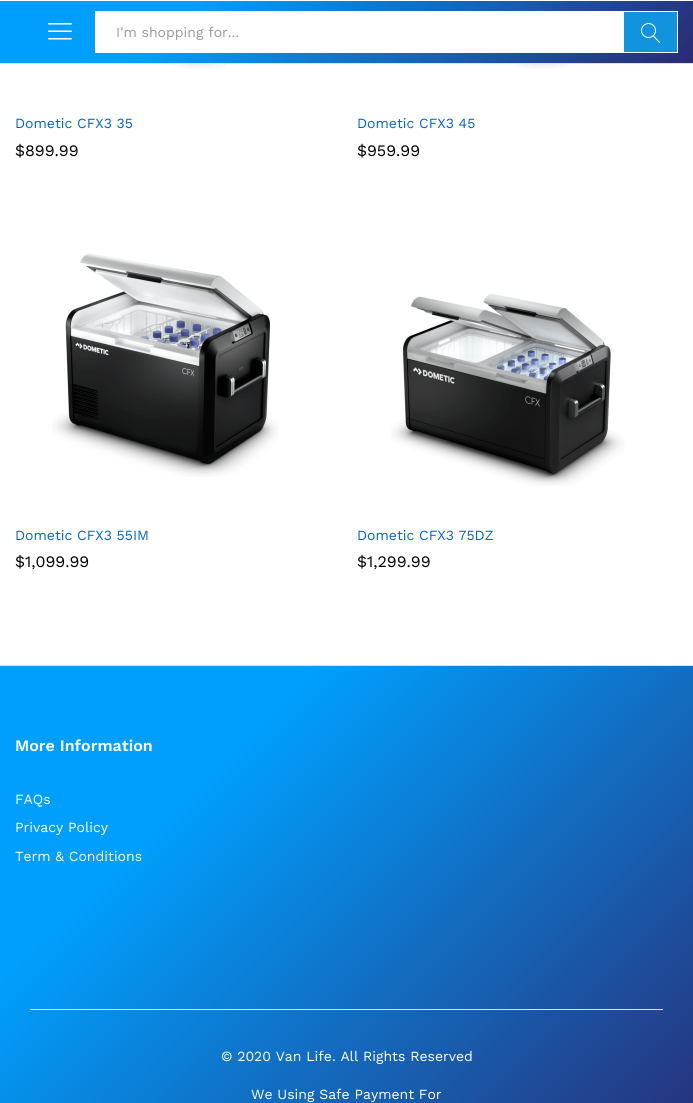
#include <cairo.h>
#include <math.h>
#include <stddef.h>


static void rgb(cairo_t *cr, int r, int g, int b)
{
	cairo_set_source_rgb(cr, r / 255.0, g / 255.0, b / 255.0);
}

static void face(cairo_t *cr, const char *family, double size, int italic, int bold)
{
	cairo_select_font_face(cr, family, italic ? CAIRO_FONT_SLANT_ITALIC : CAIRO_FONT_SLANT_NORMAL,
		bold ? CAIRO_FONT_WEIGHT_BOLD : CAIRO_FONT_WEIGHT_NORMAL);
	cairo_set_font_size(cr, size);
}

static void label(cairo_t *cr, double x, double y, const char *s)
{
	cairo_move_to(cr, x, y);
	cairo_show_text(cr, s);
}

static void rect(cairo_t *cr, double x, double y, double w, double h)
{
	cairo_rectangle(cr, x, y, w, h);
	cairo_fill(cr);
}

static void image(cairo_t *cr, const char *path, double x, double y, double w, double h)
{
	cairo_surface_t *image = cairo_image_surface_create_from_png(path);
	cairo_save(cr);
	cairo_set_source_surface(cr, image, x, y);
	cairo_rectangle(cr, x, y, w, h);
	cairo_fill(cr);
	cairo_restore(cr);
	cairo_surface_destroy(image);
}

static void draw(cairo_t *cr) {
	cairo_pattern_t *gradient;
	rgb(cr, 255, 255, 255);
	cairo_paint(cr);
	gradient = cairo_pattern_create_linear(535, 221, 158, -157);
	cairo_pattern_add_color_stop_rgba(gradient, 0, 0.165, 0.165, 0.447, 1);
	cairo_pattern_add_color_stop_rgba(gradient, 0.74, 0, 0.624, 0.992, 1);
	cairo_set_source(cr, gradient);
	cairo_pattern_destroy(gradient);
	rect(cr, 0, 1, 693, 62);
	rgb(cr, 225, 225, 225);
	rect(cr, 0, 63, 693, 1);
	image(cr, "image0.png", 48, 23, 24, 17);
	rgb(cr, 255, 255, 255);
	rect(cr, 95, 11, 528, 42);
	face(cr, "Work Sans", 14, 0, 0);
	rgb(cr, 153, 153, 153);
	label(cr, 116, 37, "I'm shopping for...");
	rgb(cr, 17, 147, 221);
	cairo_rectangle(cr, 623.5, 11.5, 54, 41);
	cairo_fill_preserve(cr);
	rgb(cr, 255, 255, 255);
	cairo_set_line_width(cr, 1);
	cairo_stroke(cr);
	image(cr, "image1.png", 641, 23, 19, 20);
	image(cr, "image2.png", 172, 64, 55, 5);
	rgb(cr, 0, 102, 204);
	label(cr, 15, 128, "Dometic CFX3 35");
	face(cr, "Work Sans", 16, 0, 0);
	rgb(cr, 0, 0, 0);
	label(cr, 15, 156, "$899.99");
	image(cr, "image3.png", 515, 64, 54, 5);
	face(cr, "Work Sans", 14, 0, 0);
	rgb(cr, 0, 102, 204);
	label(cr, 357, 128, "Dometic CFX3 45");
	face(cr, "Work Sans", 16, 0, 0);
	rgb(cr, 0, 0, 0);
	label(cr, 357, 156, "$959.99");
	image(cr, "image4.png", 52, 253, 226, 224);
	face(cr, "Work Sans", 14, 0, 0);
	rgb(cr, 0, 102, 204);
	label(cr, 15, 540, "Dometic CFX3 55IM");
	face(cr, "Work Sans", 16, 0, 0);
	rgb(cr, 0, 0, 0);
	label(cr, 15, 567, "$1,099.99");
	image(cr, "image5.png", 391, 294, 234, 192);
	face(cr, "Work Sans", 14, 0, 0);
	rgb(cr, 0, 102, 204);
	label(cr, 357, 540, "Dometic CFX3 75DZ");
	face(cr, "Work Sans", 16, 0, 0);
	rgb(cr, 0, 0, 0);
	label(cr, 357, 567, "$1,299.99");
	rgb(cr, 225, 225, 225);
	rect(cr, 0, 665, 693, 1);
	gradient = cairo_pattern_create_linear(649, 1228, 44, 622);
	cairo_pattern_add_color_stop_rgba(gradient, 0, 0.165, 0.165, 0.447, 1);
	cairo_pattern_add_color_stop_rgba(gradient, 0.74, 0, 0.624, 0.992, 1);
	cairo_set_source(cr, gradient);
	cairo_pattern_destroy(gradient);
	rect(cr, 0, 666, 693, 437);
	face(cr, "Work Sans SemiBold", 16, 0, 0);
	rgb(cr, 255, 255, 255);
	label(cr, 15, 751, "More Information");
	face(cr, "Work Sans", 14, 0, 0);
	label(cr, 15, 804, "FAQs");
	label(cr, 15, 832, "Privacy Policy");
	label(cr, 15, 861, "Term & Conditions");
	rgb(cr, 225, 225, 225);
	rect(cr, 30, 1009, 633, 1);
	rgb(cr, 255, 255, 255);
	label(cr, 221, 1061, "© 2020 Van Life. All Rights Reserved");
	label(cr, 251, 1099, "We Using Safe Payment For");
}

int main(void) {
	cairo_surface_t *surface = cairo_image_surface_create(CAIRO_FORMAT_RGB24, 693, 1103);
	cairo_t *cr = cairo_create(surface);
	cairo_font_options_t *options = cairo_font_options_create();
	cairo_font_options_set_hint_metrics(options, CAIRO_HINT_METRICS_OFF);
	cairo_font_options_set_hint_style(options, CAIRO_HINT_STYLE_NONE);
	cairo_set_font_options(cr, options);
	cairo_set_miter_limit(cr, 4);
	draw(cr);
	cairo_surface_write_to_png(surface, "render.png");
	cairo_font_options_destroy(options);
	cairo_destroy(cr);
	cairo_surface_destroy(surface);
	return 0;
}
